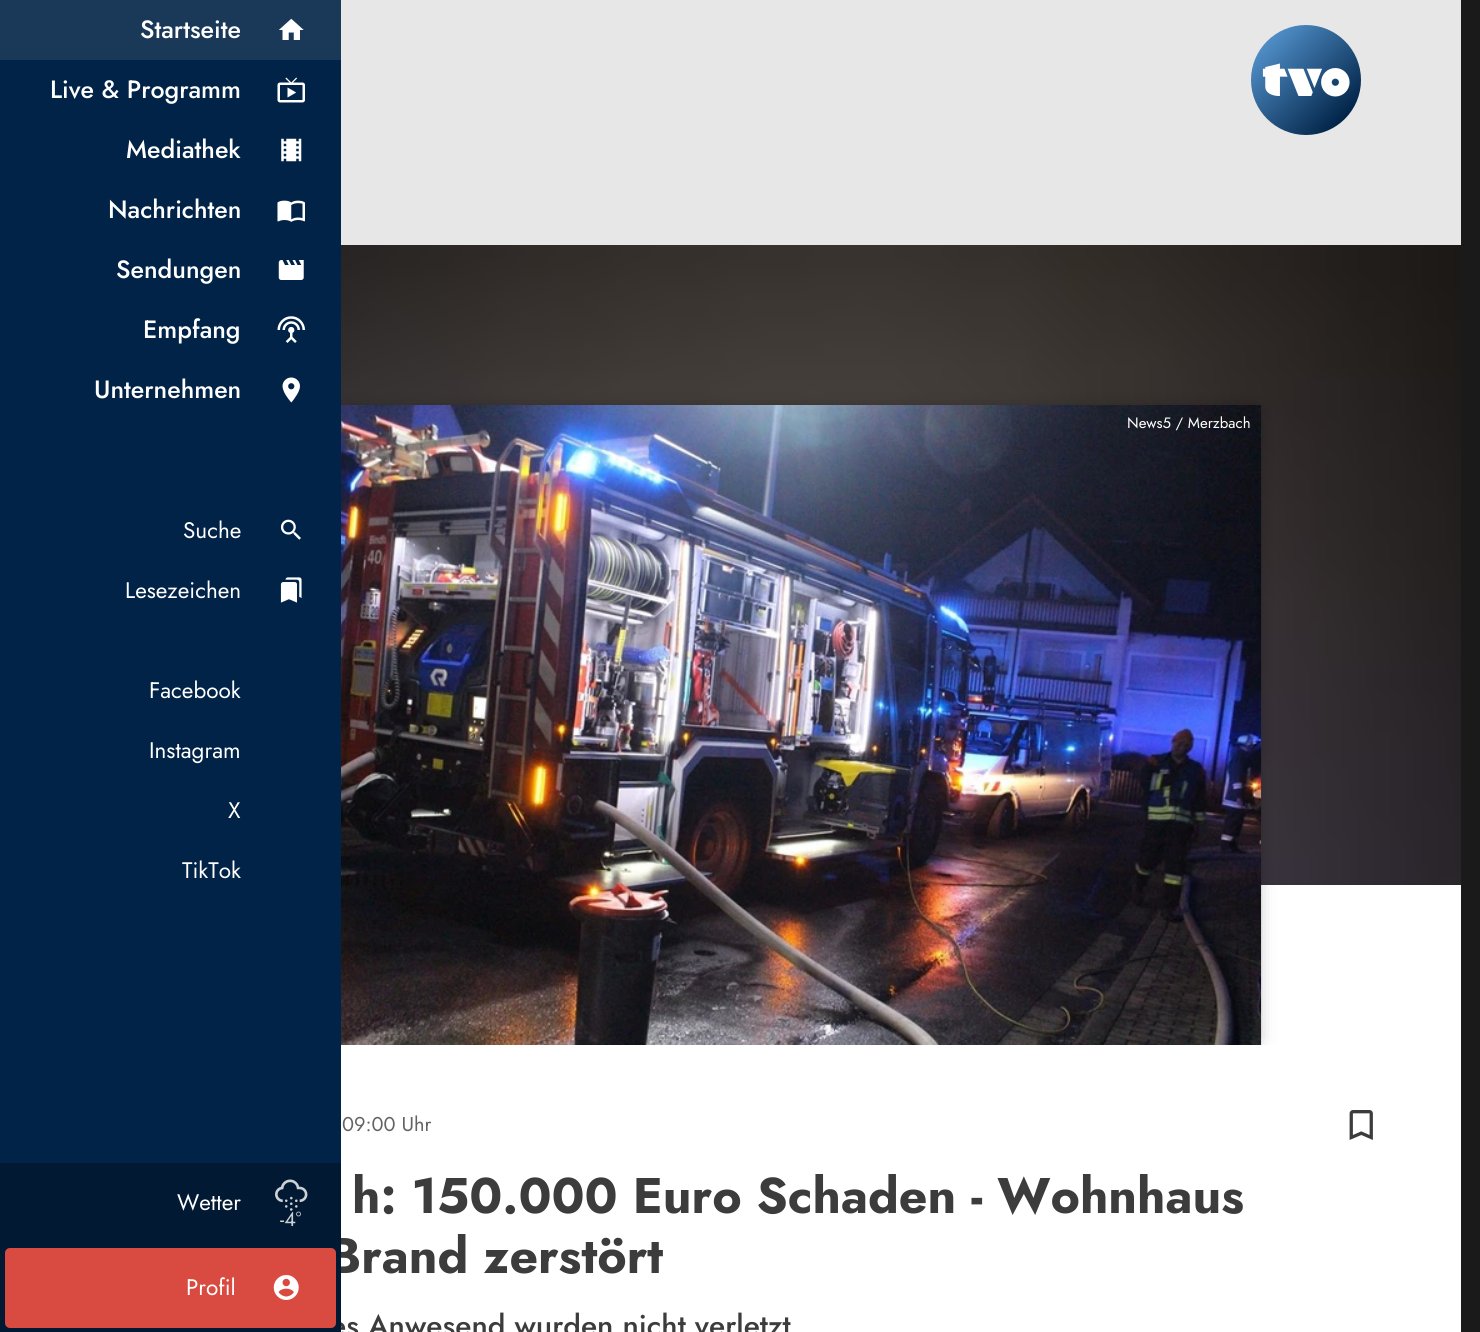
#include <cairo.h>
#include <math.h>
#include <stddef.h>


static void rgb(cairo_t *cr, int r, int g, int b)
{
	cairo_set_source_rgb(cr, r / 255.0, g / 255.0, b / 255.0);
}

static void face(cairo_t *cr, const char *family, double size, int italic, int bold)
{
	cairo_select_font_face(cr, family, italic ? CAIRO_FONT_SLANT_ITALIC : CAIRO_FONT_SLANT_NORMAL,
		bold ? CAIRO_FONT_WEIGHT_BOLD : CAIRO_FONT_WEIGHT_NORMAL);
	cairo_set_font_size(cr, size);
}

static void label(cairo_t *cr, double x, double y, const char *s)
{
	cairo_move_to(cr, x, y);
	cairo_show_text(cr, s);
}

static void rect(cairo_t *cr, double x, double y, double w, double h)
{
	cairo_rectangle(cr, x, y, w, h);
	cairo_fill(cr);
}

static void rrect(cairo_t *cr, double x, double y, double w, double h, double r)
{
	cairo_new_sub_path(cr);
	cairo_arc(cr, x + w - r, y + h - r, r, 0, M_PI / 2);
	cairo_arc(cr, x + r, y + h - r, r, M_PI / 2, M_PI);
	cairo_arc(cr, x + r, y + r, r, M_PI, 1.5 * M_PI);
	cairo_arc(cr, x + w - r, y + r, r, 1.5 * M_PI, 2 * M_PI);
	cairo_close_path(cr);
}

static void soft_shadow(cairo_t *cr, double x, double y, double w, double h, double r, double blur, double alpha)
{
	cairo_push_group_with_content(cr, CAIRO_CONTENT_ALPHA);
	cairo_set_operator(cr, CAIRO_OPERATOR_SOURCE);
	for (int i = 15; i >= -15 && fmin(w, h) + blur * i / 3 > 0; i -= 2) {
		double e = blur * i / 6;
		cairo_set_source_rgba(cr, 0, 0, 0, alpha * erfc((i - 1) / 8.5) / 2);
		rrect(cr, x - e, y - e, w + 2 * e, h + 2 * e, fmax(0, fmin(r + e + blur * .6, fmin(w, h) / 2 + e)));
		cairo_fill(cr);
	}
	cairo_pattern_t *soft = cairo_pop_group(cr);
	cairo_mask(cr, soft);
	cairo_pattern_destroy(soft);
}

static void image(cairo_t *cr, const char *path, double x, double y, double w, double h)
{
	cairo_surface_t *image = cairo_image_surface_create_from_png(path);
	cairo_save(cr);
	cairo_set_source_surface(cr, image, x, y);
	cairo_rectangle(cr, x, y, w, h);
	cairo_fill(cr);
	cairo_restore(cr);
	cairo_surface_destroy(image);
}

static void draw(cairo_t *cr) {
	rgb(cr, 26, 26, 26);
	cairo_paint(cr);
	image(cr, "image12.png", 341, 245, 1120, 640);
	rgb(cr, 255, 255, 255);
	rect(cr, 1261, 885, 200, 160);
	rect(cr, 341, 1045, 1120, 287);
	cairo_save(cr);
	cairo_rectangle(cr, 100, 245, 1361, 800);
	cairo_clip(cr);
	rgb(cr, 0, 0, 0);
	soft_shadow(cr, 308, 411, 947, 628, 0, 9.5, 0.4);
	cairo_restore(cr);
	rgb(cr, 1, 35, 71);
	rect(cr, 0, 60, 341, 1103);
	rgb(cr, 231, 231, 231);
	rect(cr, 341, 0, 1120, 245);
	image(cr, "image13.png", 341, 405, 921, 640);
	cairo_save(cr);
	cairo_rectangle(cr, 0, 0, 341, 60);
	cairo_clip(cr);
	rgb(cr, 26, 57, 89);
	cairo_arc(cr, 291, 30, 420, 0, 2 * M_PI);
	cairo_fill(cr);
	cairo_restore(cr);
	face(cr, "Jost Medium", 25, 0, 0);
	rgb(cr, 255, 255, 255);
	label(cr, 140, 38, "Startseite");
	image(cr, "image0.png", 278, 18, 26, 22);
	label(cr, 50, 98, "Live & Programm");
	image(cr, "image1.png", 277, 77, 28, 26);
	label(cr, 126, 158, "Mediathek");
	image(cr, "image2.png", 281, 138, 21, 24);
	label(cr, 108, 218, "Nachrichten");
	image(cr, "image3.png", 277, 200, 28, 22);
	label(cr, 116, 278, "Sendungen");
	image(cr, "image4.png", 278, 260, 26, 20);
	label(cr, 143, 338, "Empfang");
	image(cr, "image5.png", 277, 316, 28, 27);
	label(cr, 94, 398, "Unternehmen");
	image(cr, "image6.png", 282, 377, 18, 26);
	face(cr, "Jost", 22.5, 0, 0);
	label(cr, 183, 538, "Suche");
	image(cr, "image7.png", 280, 519, 21, 21);
	label(cr, 125, 598, "Lesezeichen");
	image(cr, "image8.png", 280, 577, 22, 26);
	label(cr, 149, 698, "Facebook");
	label(cr, 149, 758, "Instagram");
	label(cr, 228, 818, "X");
	label(cr, 182, 878, "TikTok");
	face(cr, "Jost", 50, 0, 1);
	rgb(cr, 60, 60, 60);
	label(cr, 328, 1273, "Brand zerstört");
	face(cr, "Jost Medium", 30, 0, 0);
	label(cr, 330, 1336, "es Anwesend wurden nicht verletzt");
	rgb(cr, 1, 25, 50);
	rect(cr, 0, 1163, 341, 169);
	face(cr, "Jost", 22.5, 0, 0);
	rgb(cr, 255, 255, 255);
	label(cr, 177, 1210, "Wetter");
	image(cr, "image9.png", 275, 1179, 33, 32);
	face(cr, "Jost", 20, 0, 0);
	rgb(cr, 204, 209, 214);
	label(cr, 280, 1226, "-4°");
	rgb(cr, 217, 75, 65);
	rrect(cr, 5, 1248, 331, 80, 5);
	cairo_fill(cr);
	face(cr, "Jost", 22.5, 0, 0);
	rgb(cr, 255, 255, 255);
	label(cr, 186, 1295, "Profil");
	image(cr, "image10.png", 273, 1275, 26, 25);
	image(cr, "image11.png", 1251, 25, 110, 110);
	face(cr, "Jost", 15, 0, 0);
	label(cr, 1127, 428, "News5 / Merzbach");
	face(cr, "Jost", 20, 0, 0);
	rgb(cr, 99, 99, 99);
	label(cr, 342, 1131, "09:00 Uhr");
	image(cr, "image14.png", 1349, 1110, 24, 30);
	face(cr, "Jost", 50, 0, 1);
	rgb(cr, 60, 60, 60);
	label(cr, 352, 1213, "h: 150.000 Euro Schaden - Wohnhaus");
}

int main(void) {
	cairo_surface_t *surface = cairo_image_surface_create(CAIRO_FORMAT_RGB24, 1480, 1332);
	cairo_t *cr = cairo_create(surface);
	cairo_font_options_t *options = cairo_font_options_create();
	cairo_font_options_set_hint_metrics(options, CAIRO_HINT_METRICS_OFF);
	cairo_font_options_set_hint_style(options, CAIRO_HINT_STYLE_NONE);
	cairo_set_font_options(cr, options);
	cairo_set_miter_limit(cr, 4);
	draw(cr);
	cairo_surface_write_to_png(surface, "render.png");
	cairo_font_options_destroy(options);
	cairo_destroy(cr);
	cairo_surface_destroy(surface);
	return 0;
}
